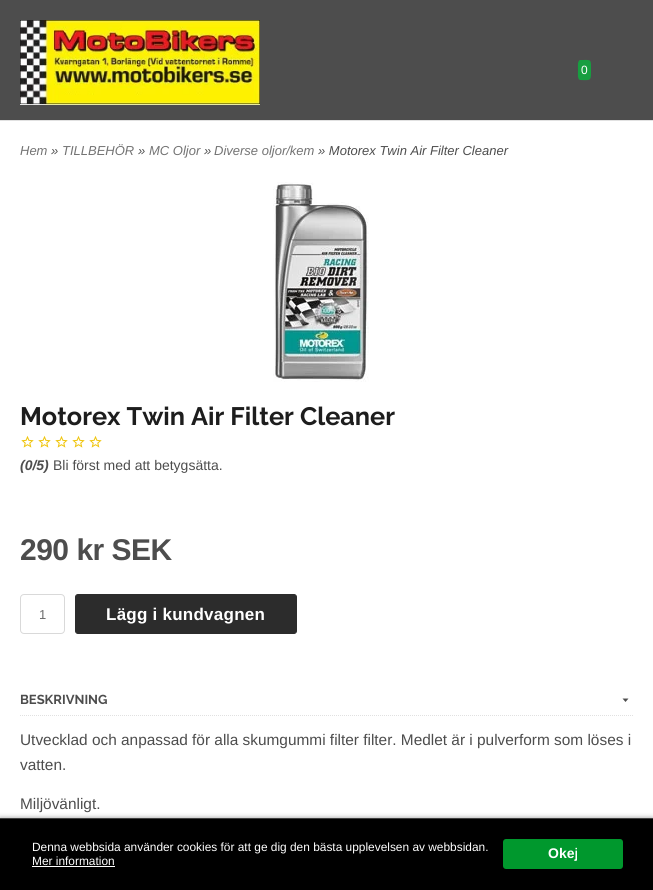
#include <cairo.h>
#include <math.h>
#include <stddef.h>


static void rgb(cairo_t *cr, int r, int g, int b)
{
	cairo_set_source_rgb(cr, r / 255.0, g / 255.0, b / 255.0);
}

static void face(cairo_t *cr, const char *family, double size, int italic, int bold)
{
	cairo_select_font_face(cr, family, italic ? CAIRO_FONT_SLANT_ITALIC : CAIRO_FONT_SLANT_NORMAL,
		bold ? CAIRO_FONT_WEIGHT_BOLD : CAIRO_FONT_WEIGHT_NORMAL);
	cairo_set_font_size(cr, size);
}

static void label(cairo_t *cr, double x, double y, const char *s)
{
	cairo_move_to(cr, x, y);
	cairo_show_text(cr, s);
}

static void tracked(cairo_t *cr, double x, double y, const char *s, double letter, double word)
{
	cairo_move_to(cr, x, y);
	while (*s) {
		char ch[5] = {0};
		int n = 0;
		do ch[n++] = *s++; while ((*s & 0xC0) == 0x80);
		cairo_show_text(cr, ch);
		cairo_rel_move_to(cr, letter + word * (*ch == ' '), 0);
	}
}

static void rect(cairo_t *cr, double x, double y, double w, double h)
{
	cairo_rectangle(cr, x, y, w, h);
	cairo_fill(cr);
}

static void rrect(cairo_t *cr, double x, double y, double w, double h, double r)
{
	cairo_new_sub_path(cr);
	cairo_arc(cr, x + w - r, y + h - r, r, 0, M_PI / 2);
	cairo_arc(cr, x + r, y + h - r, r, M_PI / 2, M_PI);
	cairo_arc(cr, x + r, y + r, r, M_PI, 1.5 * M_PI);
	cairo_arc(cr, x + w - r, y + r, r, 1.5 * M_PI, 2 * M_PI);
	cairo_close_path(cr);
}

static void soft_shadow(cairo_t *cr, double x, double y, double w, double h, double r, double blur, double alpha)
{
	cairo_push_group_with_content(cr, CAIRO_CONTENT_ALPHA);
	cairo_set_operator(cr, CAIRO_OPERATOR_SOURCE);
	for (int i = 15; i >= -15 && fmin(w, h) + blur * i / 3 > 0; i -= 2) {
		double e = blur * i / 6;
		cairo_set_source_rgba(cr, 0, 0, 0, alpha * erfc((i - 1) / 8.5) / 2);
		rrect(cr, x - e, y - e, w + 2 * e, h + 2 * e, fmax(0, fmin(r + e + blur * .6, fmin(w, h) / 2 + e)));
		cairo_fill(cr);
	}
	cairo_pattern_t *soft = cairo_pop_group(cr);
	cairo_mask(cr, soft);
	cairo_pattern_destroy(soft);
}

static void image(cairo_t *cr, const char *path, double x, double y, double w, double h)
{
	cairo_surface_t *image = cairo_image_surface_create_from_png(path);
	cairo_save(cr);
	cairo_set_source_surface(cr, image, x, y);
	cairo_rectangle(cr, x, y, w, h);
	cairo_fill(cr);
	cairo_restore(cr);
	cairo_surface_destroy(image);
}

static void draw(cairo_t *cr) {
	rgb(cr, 255, 255, 255);
	cairo_paint(cr);
	rgb(cr, 225, 225, 225);
	rect(cr, 0, 120, 653, 1);
	rgb(cr, 77, 77, 77);
	rect(cr, 0, 0, 653, 120);
	image(cr, "image0.png", 20, 20, 240, 85);
	rgb(cr, 23, 158, 64);
	cairo_new_path(cr);
	cairo_move_to(cr, 580.5, 60);
	cairo_curve_to(cr, 591.5, 60, 591, 58.5, 591, 70);
	cairo_curve_to(cr, 591, 80.5, 591.5, 80.5, 580.5, 80);
	cairo_curve_to(cr, 577, 80, 578, 72, 578, 70);
	cairo_curve_to(cr, 578, 68, 577, 60, 580.5, 60);
	cairo_close_path(cr);
	cairo_fill(cr);
	face(cr, "Liberation Sans", 12, 0, 0);
	rgb(cr, 255, 255, 255);
	label(cr, 581, 74, "0");
	face(cr, "Liberation Sans", 13, 1, 0);
	rgb(cr, 115, 115, 115);
	label(cr, 20, 155, "Hem");
	rgb(cr, 77, 77, 77);
	label(cr, 51, 155, "»");
	rgb(cr, 115, 115, 115);
	label(cr, 62, 155, "TILLBEHÖR");
	rgb(cr, 77, 77, 77);
	label(cr, 138, 155, "»");
	rgb(cr, 115, 115, 115);
	label(cr, 149, 155, "MC Oljor");
	rgb(cr, 77, 77, 77);
	label(cr, 204, 155, "»");
	rgb(cr, 115, 115, 115);
	label(cr, 214, 155, "Diverse oljor/kem");
	rgb(cr, 77, 77, 77);
	label(cr, 318, 155, "» Motorex Twin Air Filter Cleaner");
	image(cr, "image1.png", 273, 182, 96, 200);
	face(cr, "Raleway", 25.25, 0, 1);
	rgb(cr, 29, 29, 29);
	label(cr, 20, 425, "Motorex Twin Air Filter Cleaner");
	image(cr, "image2.png", 21, 435, 13, 13);
	image(cr, "image2.png", 38, 435, 13, 13);
	image(cr, "image2.png", 55, 435, 13, 13);
	image(cr, "image2.png", 72, 435, 13, 13);
	image(cr, "image2.png", 89, 435, 13, 13);
	face(cr, "Liberation Sans", 14, 1, 1);
	rgb(cr, 77, 77, 77);
	label(cr, 20, 470, "(0/5)");
	face(cr, "Liberation Sans", 14, 0, 0);
	label(cr, 53, 470, "Bli först med att betygsätta.");
	face(cr, "Liberation Sans", 30, 0, 1);
	tracked(cr, 20, 560, "290 kr SEK", -0.5, 0);
	rrect(cr, 20.5, 594.5, 44, 39, 3.5);
	rgb(cr, 217, 217, 217);
	cairo_set_line_width(cr, 1);
	cairo_stroke(cr);
	face(cr, "Liberation Sans", 13, 0, 0);
	rgb(cr, 108, 108, 108);
	label(cr, 39, 619, "1");
	rgb(cr, 44, 44, 44);
	rrect(cr, 75.5, 594.5, 221, 39, 2.5);
	cairo_fill_preserve(cr);
	cairo_stroke(cr);
	face(cr, "Liberation Sans", 17, 0, 1);
	rgb(cr, 255, 255, 255);
	tracked(cr, 106, 620, "Lägg i kundvagnen", 0.25, 0);
	cairo_new_path(cr);
	cairo_move_to(cr, 20, 715.5);
	cairo_line_to(cr, 633, 715.5);
	rgb(cr, 225, 225, 225);
	cairo_set_dash(cr, (double[]){1, 1}, 2, 0);
	cairo_stroke(cr);
	face(cr, "Raleway", 13, 0, 1);
	rgb(cr, 77, 77, 77);
	label(cr, 20, 704, "BESKRIVNING");
	cairo_new_path(cr);
	cairo_move_to(cr, 628.5, 698.5);
	cairo_line_to(cr, 625.5, 702);
	cairo_line_to(cr, 622.5, 698.5);
	cairo_close_path(cr);
	cairo_fill(cr);
	face(cr, "Liberation Sans", 15.4, 0, 0);
	label(cr, 20, 745, "Utvecklad och anpassad för alla skumgummi filter filter. Medlet är i pulverform som löses i");
	label(cr, 20, 770, "vatten.");
	label(cr, 20, 809, "Miljövänligt.");
	rgb(cr, 153, 153, 153);
	soft_shadow(cr, 0, 818, 653, 72, 0, 2.5, 1);
	rgb(cr, 0, 0, 0);
	rect(cr, 0, 819, 653, 71);
	rgb(cr, 64, 64, 64);
	rect(cr, 0, 818, 653, 1);
	face(cr, "Liberation Sans", 11.9, 0, 0);
	rgb(cr, 255, 255, 255);
	label(cr, 32, 851, "Denna webbsida använder cookies för att ge dig den bästa upplevelsen av webbsidan.");
	label(cr, 32, 865, "Mer information");
	rect(cr, 32, 866, 83, 1);
	rgb(cr, 0, 152, 45);
	rrect(cr, 503, 839, 120, 30, 3);
	cairo_fill(cr);
	face(cr, "Liberation Sans", 14, 0, 1);
	rgb(cr, 255, 255, 255);
	label(cr, 548, 858, "Okej");
}

int main(void) {
	cairo_surface_t *surface = cairo_image_surface_create(CAIRO_FORMAT_RGB24, 653, 890);
	cairo_t *cr = cairo_create(surface);
	cairo_font_options_t *options = cairo_font_options_create();
	cairo_font_options_set_hint_metrics(options, CAIRO_HINT_METRICS_OFF);
	cairo_font_options_set_hint_style(options, CAIRO_HINT_STYLE_NONE);
	cairo_set_font_options(cr, options);
	cairo_set_miter_limit(cr, 4);
	draw(cr);
	cairo_surface_write_to_png(surface, "render.png");
	cairo_font_options_destroy(options);
	cairo_destroy(cr);
	cairo_surface_destroy(surface);
	return 0;
}
